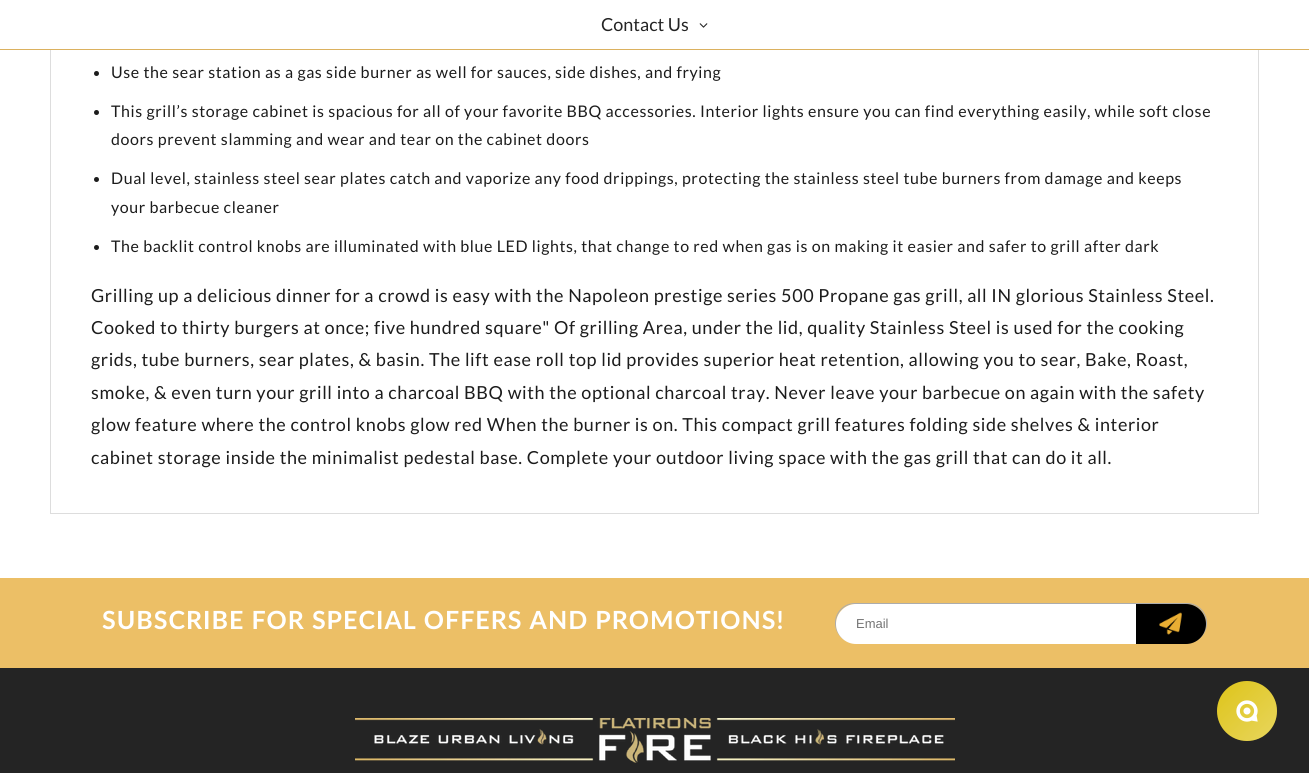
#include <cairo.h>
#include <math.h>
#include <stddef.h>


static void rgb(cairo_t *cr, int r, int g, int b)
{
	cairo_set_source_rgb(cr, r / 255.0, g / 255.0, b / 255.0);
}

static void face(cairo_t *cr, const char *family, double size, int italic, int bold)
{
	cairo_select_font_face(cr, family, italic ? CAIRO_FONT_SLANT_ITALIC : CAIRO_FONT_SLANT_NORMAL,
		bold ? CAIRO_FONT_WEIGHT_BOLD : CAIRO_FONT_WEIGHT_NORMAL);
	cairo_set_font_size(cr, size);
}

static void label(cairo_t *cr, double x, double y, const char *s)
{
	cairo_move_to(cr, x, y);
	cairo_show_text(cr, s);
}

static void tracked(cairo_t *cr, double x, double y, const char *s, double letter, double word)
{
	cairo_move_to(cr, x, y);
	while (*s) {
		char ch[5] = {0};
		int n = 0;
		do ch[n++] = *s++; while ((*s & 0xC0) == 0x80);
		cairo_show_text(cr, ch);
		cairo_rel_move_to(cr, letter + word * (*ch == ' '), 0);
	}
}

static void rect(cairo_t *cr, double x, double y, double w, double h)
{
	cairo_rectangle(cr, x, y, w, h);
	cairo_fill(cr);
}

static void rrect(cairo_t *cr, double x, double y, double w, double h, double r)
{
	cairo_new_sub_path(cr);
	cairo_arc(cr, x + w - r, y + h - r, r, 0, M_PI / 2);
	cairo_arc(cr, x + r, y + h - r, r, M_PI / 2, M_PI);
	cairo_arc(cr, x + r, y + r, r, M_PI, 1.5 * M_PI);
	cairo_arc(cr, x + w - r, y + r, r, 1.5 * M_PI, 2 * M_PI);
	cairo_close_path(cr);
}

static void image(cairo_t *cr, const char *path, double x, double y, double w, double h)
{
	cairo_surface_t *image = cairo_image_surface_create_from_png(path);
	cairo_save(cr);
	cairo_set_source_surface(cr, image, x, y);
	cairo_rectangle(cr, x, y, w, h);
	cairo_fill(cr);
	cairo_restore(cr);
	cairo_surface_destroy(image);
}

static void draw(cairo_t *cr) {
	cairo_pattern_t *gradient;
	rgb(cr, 255, 255, 255);
	cairo_paint(cr);
	cairo_rectangle(cr, 50.5, -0.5, 1208, 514);
	rgb(cr, 221, 221, 221);
	cairo_set_line_width(cr, 1);
	cairo_stroke(cr);
	rgb(cr, 219, 177, 95);
	rect(cr, 0, 49, 1309, 1);
	rgb(cr, 255, 255, 255);
	rect(cr, 50, 0, 1209, 49);
	face(cr, "Lato", 18, 0, 0);
	rgb(cr, 36, 36, 36);
	label(cr, 601, 31, "Contact Us");
	image(cr, "image0.png", 699, 23, 9, 5);
	rgb(cr, 28, 28, 28);
	cairo_arc(cr, 96.5, 73.5, 2.5, 0, 2 * M_PI);
	cairo_fill(cr);
	face(cr, "Lato", 16, 0, 0);
	tracked(cr, 111, 78, "Use the sear station as a gas side burner as well for sauces, side dishes, and frying", 0.6, 0);
	cairo_new_path(cr);
	cairo_arc(cr, 96.5, 112.5, 2.5, 0, 2 * M_PI);
	cairo_fill(cr);
	tracked(cr, 111, 117, "This grill’s storage cabinet is spacious for all of your favorite BBQ accessories. Interior lights ensure you can find everything easily, while soft close", 0.6, 0);
	tracked(cr, 111, 145, "doors prevent slamming and wear and tear on the cabinet doors", 0.6, 0);
	cairo_new_path(cr);
	cairo_arc(cr, 96.5, 179.5, 2.5, 0, 2 * M_PI);
	cairo_fill(cr);
	tracked(cr, 111, 184, "Dual level, stainless steel sear plates catch and vaporize any food drippings, protecting the stainless steel tube burners from damage and keeps", 0.6, 0);
	tracked(cr, 111, 213, "your barbecue cleaner", 0.6, 0);
	cairo_new_path(cr);
	cairo_arc(cr, 96.5, 247.5, 2.5, 0, 2 * M_PI);
	cairo_fill(cr);
	tracked(cr, 111, 252, "The backlit control knobs are illuminated with blue LED lights, that change to red when gas is on making it easier and safer to grill after dark", 0.6, 0);
	face(cr, "Lato", 18, 0, 0);
	tracked(cr, 91, 302, "Grilling up a delicious dinner for a crowd is easy with the Napoleon prestige series 500 Propane gas grill, all IN glorious Stainless Steel.", 0.6, 0);
	tracked(cr, 91, 334, "Cooked to thirty burgers at once; five hundred square\" Of grilling Area, under the lid, quality Stainless Steel is used for the cooking", 0.6, 0);
	tracked(cr, 91, 366, "grids, tube burners, sear plates, & basin. The lift ease roll top lid provides superior heat retention, allowing you to sear, Bake, Roast,", 0.6, 0);
	tracked(cr, 91, 399, "smoke, & even turn your grill into a charcoal BBQ with the optional charcoal tray. Never leave your barbecue on again with the safety", 0.6, 0);
	tracked(cr, 91, 431, "glow feature where the control knobs glow red When the burner is on. This compact grill features folding side shelves & interior", 0.6, 0);
	tracked(cr, 91, 464, "cabinet storage inside the minimalist pedestal base. Complete your outdoor living space with the gas grill that can do it all.", 0.6, 0);
	rgb(cr, 36, 36, 36);
	rect(cr, 0, 668, 1309, 105);
	rgb(cr, 236, 191, 102);
	rect(cr, 0, 578, 1309, 90);
	face(cr, "Lato", 25, 0, 1);
	rgb(cr, 255, 255, 255);
	tracked(cr, 102, 629, "SUBSCRIBE FOR SPECIAL OFFERS AND PROMOTIONS!", 1, 0);
	rrect(cr, 835.5, 603.5, 371, 39, 19.5);
	rgb(cr, 172, 172, 172);
	cairo_stroke(cr);
	rgb(cr, 255, 255, 255);
	cairo_new_path(cr);
	cairo_move_to(cr, 856, 604);
	cairo_line_to(cr, 1136, 604);
	cairo_line_to(cr, 1136, 644);
	cairo_line_to(cr, 856, 644);
	cairo_curve_to(cr, 845, 644, 836, 635, 836, 624);
	cairo_curve_to(cr, 836, 613, 845, 604, 856, 604);
	cairo_close_path(cr);
	cairo_fill(cr);
	face(cr, "Liberation Sans", 13, 0, 0);
	rgb(cr, 117, 117, 117);
	label(cr, 856, 628, "Email");
	rgb(cr, 0, 0, 0);
	cairo_new_path(cr);
	cairo_move_to(cr, 1136, 604);
	cairo_line_to(cr, 1186, 604);
	cairo_curve_to(cr, 1197, 604, 1206, 613, 1206, 624);
	cairo_curve_to(cr, 1206, 635, 1197, 644, 1186, 644);
	cairo_line_to(cr, 1136, 644);
	cairo_close_path(cr);
	cairo_fill(cr);
	image(cr, "image1.png", 1159, 612, 23, 23);
	image(cr, "image2.png", 355, 718, 600, 45);
	rgb(cr, 222, 196, 25);
	cairo_arc(cr, 1247, 711, 30, 0, 2 * M_PI);
	cairo_fill(cr);
	gradient = cairo_pattern_create_linear(1277, 741, 1217, 681);
	cairo_pattern_add_color_stop_rgba(gradient, 0, 1, 1, 1, 0.3);
	cairo_pattern_add_color_stop_rgba(gradient, 1, 1, 1, 1, 0);
	cairo_set_source(cr, gradient);
	cairo_pattern_destroy(gradient);
	cairo_arc(cr, 1247, 711, 30, 0, 2 * M_PI);
	cairo_fill(cr);
	image(cr, "image3.png", 1236, 700, 22, 22);
}

int main(void) {
	cairo_surface_t *surface = cairo_image_surface_create(CAIRO_FORMAT_RGB24, 1309, 773);
	cairo_t *cr = cairo_create(surface);
	cairo_font_options_t *options = cairo_font_options_create();
	cairo_font_options_set_hint_metrics(options, CAIRO_HINT_METRICS_OFF);
	cairo_font_options_set_hint_style(options, CAIRO_HINT_STYLE_NONE);
	cairo_set_font_options(cr, options);
	cairo_set_miter_limit(cr, 4);
	draw(cr);
	cairo_surface_write_to_png(surface, "render.png");
	cairo_font_options_destroy(options);
	cairo_destroy(cr);
	cairo_surface_destroy(surface);
	return 0;
}
